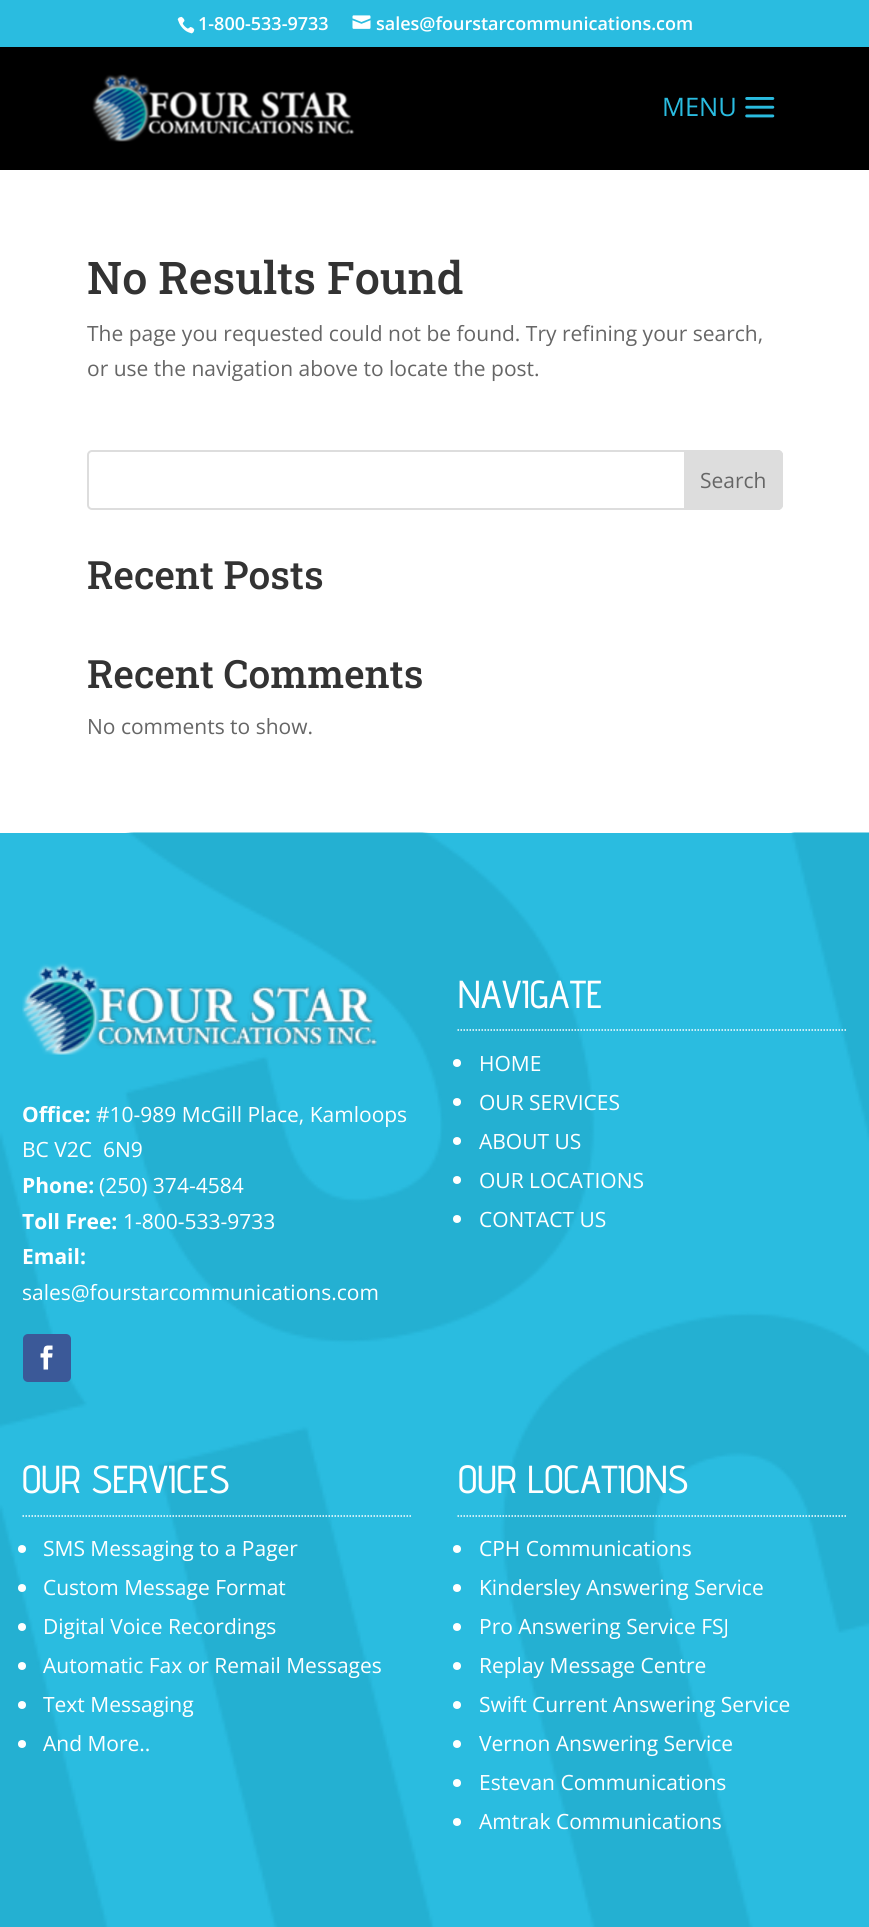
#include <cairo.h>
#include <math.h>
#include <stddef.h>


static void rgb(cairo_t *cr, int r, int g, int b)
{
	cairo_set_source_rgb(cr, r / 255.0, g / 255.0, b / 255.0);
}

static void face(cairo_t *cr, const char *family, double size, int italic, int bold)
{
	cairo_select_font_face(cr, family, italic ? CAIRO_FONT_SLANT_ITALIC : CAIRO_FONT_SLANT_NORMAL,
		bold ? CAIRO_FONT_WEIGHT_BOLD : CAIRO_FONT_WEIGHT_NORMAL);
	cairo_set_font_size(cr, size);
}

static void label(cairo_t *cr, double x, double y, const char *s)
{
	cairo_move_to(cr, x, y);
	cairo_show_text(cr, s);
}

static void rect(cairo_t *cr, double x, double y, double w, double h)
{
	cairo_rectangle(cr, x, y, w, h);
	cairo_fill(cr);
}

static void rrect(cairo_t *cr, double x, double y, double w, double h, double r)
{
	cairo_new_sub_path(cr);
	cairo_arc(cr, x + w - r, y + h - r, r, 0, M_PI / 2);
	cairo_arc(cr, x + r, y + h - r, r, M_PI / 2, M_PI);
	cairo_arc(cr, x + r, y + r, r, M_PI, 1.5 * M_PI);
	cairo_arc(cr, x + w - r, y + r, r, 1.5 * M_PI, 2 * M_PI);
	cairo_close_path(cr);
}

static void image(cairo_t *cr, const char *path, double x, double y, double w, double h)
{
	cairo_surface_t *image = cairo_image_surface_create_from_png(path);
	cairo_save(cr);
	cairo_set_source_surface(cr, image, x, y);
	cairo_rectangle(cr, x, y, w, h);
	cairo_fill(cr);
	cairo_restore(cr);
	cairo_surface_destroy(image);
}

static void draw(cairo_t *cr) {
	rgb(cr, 255, 255, 255);
	cairo_paint(cr);
	rgb(cr, 42, 188, 224);
	rect(cr, 0, 0, 869, 47);
	image(cr, "image0.png", 177, 16, 18, 18);
	face(cr, "Open Sans SemiBold", 18, 0, 0);
	rgb(cr, 255, 255, 255);
	label(cr, 198, 30, "1-800-533-9733");
	image(cr, "image1.png", 352, 15, 19, 14);
	label(cr, 376, 30, "sales@fourstarcommunications.com");
	rgb(cr, 0, 0, 0);
	rect(cr, 0, 47, 869, 123);
	image(cr, "image2.png", 92, 74, 263, 68);
	face(cr, "Open Sans", 25.5, 0, 0);
	rgb(cr, 42, 188, 224);
	label(cr, 662, 116, "MENU");
	image(cr, "image3.png", 745, 97, 30, 21);
	face(cr, "Roboto Slab Medium", 45, 0, 0);
	rgb(cr, 51, 51, 51);
	label(cr, 87, 294, "No Results Found");
	face(cr, "Open Sans", 21, 0, 0);
	rgb(cr, 102, 102, 102);
	label(cr, 87, 341, "The page you requested could not be found. Try refining your search,");
	label(cr, 87, 376, "or use the navigation above to locate the post.");
	rrect(cr, 88, 451, 694, 58, 4);
	rgb(cr, 221, 221, 221);
	cairo_stroke(cr);
	cairo_new_path(cr);
	cairo_move_to(cr, 685, 451);
	cairo_line_to(cr, 778, 451);
	cairo_curve_to(cr, 780, 451, 782, 453, 782, 455);
	cairo_line_to(cr, 782, 505);
	cairo_curve_to(cr, 782, 507, 780, 509, 778, 509);
	cairo_line_to(cr, 685, 509);
	cairo_close_path(cr);
	cairo_fill_preserve(cr);
	cairo_stroke(cr);
	rgb(cr, 102, 102, 102);
	label(cr, 700, 488, "Search");
	face(cr, "Roboto Slab Medium", 39, 0, 0);
	rgb(cr, 51, 51, 51);
	label(cr, 87, 589, "Recent Posts");
	label(cr, 87, 688, "Recent Comments");
	face(cr, "Open Sans", 21, 0, 0);
	rgb(cr, 102, 102, 102);
	label(cr, 87, 734, "No comments to show.");
	rgb(cr, 42, 188, 224);
	rect(cr, 0, 833, 869, 1094);
	image(cr, "image4.png", 0, 832, 869, 1095);
	image(cr, "image5.png", 22, 962, 355, 93);
	face(cr, "Open Sans", 21, 0, 1);
	rgb(cr, 255, 255, 255);
	label(cr, 22, 1122, "Office:");
	face(cr, "Open Sans", 21, 0, 0);
	label(cr, 96, 1122, "#10-989 McGill Place, Kamloops");
	label(cr, 22, 1157, "BC V2C  6N9");
	face(cr, "Open Sans", 21, 0, 1);
	label(cr, 22, 1193, "Phone:");
	face(cr, "Open Sans", 21, 0, 0);
	label(cr, 99, 1193, "(250) 374-4584");
	face(cr, "Open Sans", 21, 0, 1);
	label(cr, 22, 1229, "Toll Free:");
	face(cr, "Open Sans", 21, 0, 0);
	label(cr, 123, 1229, "1-800-533-9733");
	face(cr, "Open Sans", 21, 0, 1);
	label(cr, 22, 1264, "Email:");
	face(cr, "Open Sans", 21, 0, 0);
	label(cr, 22, 1300, "sales@fourstarcommunications.com");
	rgb(cr, 59, 89, 152);
	rrect(cr, 23, 1334, 48, 48, 5);
	cairo_fill(cr);
	image(cr, "image6.png", 40, 1345, 13, 25);
	cairo_new_path(cr);
	cairo_move_to(cr, 457.5, 1030);
	cairo_line_to(cr, 847.5, 1030);
	rgb(cr, 255, 255, 255);
	cairo_set_line_width(cr, 1.5);
	cairo_set_dash(cr, (double[]){1.5, 1.5}, 2, 0);
	cairo_stroke(cr);
	face(cr, "Advent Pro Medium", 39, 0, 0);
	label(cr, 458, 1008, "NAVIGATE");
	cairo_new_path(cr);
	cairo_arc(cr, 457, 1063, 4, 0, 2 * M_PI);
	cairo_fill(cr);
	face(cr, "Open Sans", 21, 0, 0);
	label(cr, 479, 1071, "HOME");
	cairo_new_path(cr);
	cairo_arc(cr, 457, 1102, 4, 0, 2 * M_PI);
	cairo_fill(cr);
	label(cr, 479, 1110, "OUR SERVICES");
	cairo_new_path(cr);
	cairo_arc(cr, 457, 1141, 4, 0, 2 * M_PI);
	cairo_fill(cr);
	label(cr, 479, 1149, "ABOUT US");
	cairo_new_path(cr);
	cairo_arc(cr, 457, 1180, 4, 0, 2 * M_PI);
	cairo_fill(cr);
	label(cr, 479, 1188, "OUR LOCATIONS");
	cairo_new_path(cr);
	cairo_arc(cr, 457, 1219, 4, 0, 2 * M_PI);
	cairo_fill(cr);
	label(cr, 479, 1227, "CONTACT US");
	cairo_new_path(cr);
	cairo_move_to(cr, 22.5, 1516);
	cairo_line_to(cr, 412.5, 1516);
	cairo_stroke(cr);
	face(cr, "Advent Pro Medium", 39, 0, 0);
	label(cr, 22, 1493, "OUR SERVICES");
	cairo_new_path(cr);
	cairo_arc(cr, 22, 1549, 4, 0, 2 * M_PI);
	cairo_fill(cr);
	face(cr, "Open Sans", 21, 0, 0);
	label(cr, 43, 1556, "SMS Messaging to a Pager");
	cairo_new_path(cr);
	cairo_arc(cr, 22, 1588, 4, 0, 2 * M_PI);
	cairo_fill(cr);
	label(cr, 43, 1595, "Custom Message Format");
	cairo_new_path(cr);
	cairo_arc(cr, 22, 1627, 4, 0, 2 * M_PI);
	cairo_fill(cr);
	label(cr, 43, 1634, "Digital Voice Recordings");
	cairo_new_path(cr);
	cairo_arc(cr, 22, 1666, 4, 0, 2 * M_PI);
	cairo_fill(cr);
	label(cr, 43, 1673, "Automatic Fax or Remail Messages");
	cairo_new_path(cr);
	cairo_arc(cr, 22, 1705, 4, 0, 2 * M_PI);
	cairo_fill(cr);
	label(cr, 43, 1712, "Text Messaging");
	cairo_new_path(cr);
	cairo_arc(cr, 22, 1744, 4, 0, 2 * M_PI);
	cairo_fill(cr);
	label(cr, 43, 1751, "And More..");
	cairo_new_path(cr);
	cairo_move_to(cr, 457.5, 1516);
	cairo_line_to(cr, 847.5, 1516);
	cairo_stroke(cr);
	face(cr, "Advent Pro Medium", 39, 0, 0);
	label(cr, 458, 1493, "OUR LOCATIONS");
	cairo_new_path(cr);
	cairo_arc(cr, 457, 1549, 4, 0, 2 * M_PI);
	cairo_fill(cr);
	face(cr, "Open Sans", 21, 0, 0);
	label(cr, 479, 1556, "CPH Communications");
	cairo_new_path(cr);
	cairo_arc(cr, 457, 1588, 4, 0, 2 * M_PI);
	cairo_fill(cr);
	label(cr, 479, 1595, "Kindersley Answering Service");
	cairo_new_path(cr);
	cairo_arc(cr, 457, 1627, 4, 0, 2 * M_PI);
	cairo_fill(cr);
	label(cr, 479, 1634, "Pro Answering Service FSJ");
	cairo_new_path(cr);
	cairo_arc(cr, 457, 1666, 4, 0, 2 * M_PI);
	cairo_fill(cr);
	label(cr, 479, 1673, "Replay Message Centre");
	cairo_new_path(cr);
	cairo_arc(cr, 457, 1705, 4, 0, 2 * M_PI);
	cairo_fill(cr);
	label(cr, 479, 1712, "Swift Current Answering Service");
	cairo_new_path(cr);
	cairo_arc(cr, 457, 1744, 4, 0, 2 * M_PI);
	cairo_fill(cr);
	label(cr, 479, 1751, "Vernon Answering Service");
	cairo_new_path(cr);
	cairo_arc(cr, 457, 1783, 4, 0, 2 * M_PI);
	cairo_fill(cr);
	label(cr, 479, 1790, "Estevan Communications");
	cairo_new_path(cr);
	cairo_arc(cr, 457, 1822, 4, 0, 2 * M_PI);
	cairo_fill(cr);
	label(cr, 479, 1829, "Amtrak Communications");
}

int main(void) {
	cairo_surface_t *surface = cairo_image_surface_create(CAIRO_FORMAT_RGB24, 869, 1927);
	cairo_t *cr = cairo_create(surface);
	cairo_font_options_t *options = cairo_font_options_create();
	cairo_font_options_set_hint_metrics(options, CAIRO_HINT_METRICS_OFF);
	cairo_font_options_set_hint_style(options, CAIRO_HINT_STYLE_NONE);
	cairo_set_font_options(cr, options);
	cairo_set_miter_limit(cr, 4);
	draw(cr);
	cairo_surface_write_to_png(surface, "render.png");
	cairo_font_options_destroy(options);
	cairo_destroy(cr);
	cairo_surface_destroy(surface);
	return 0;
}
